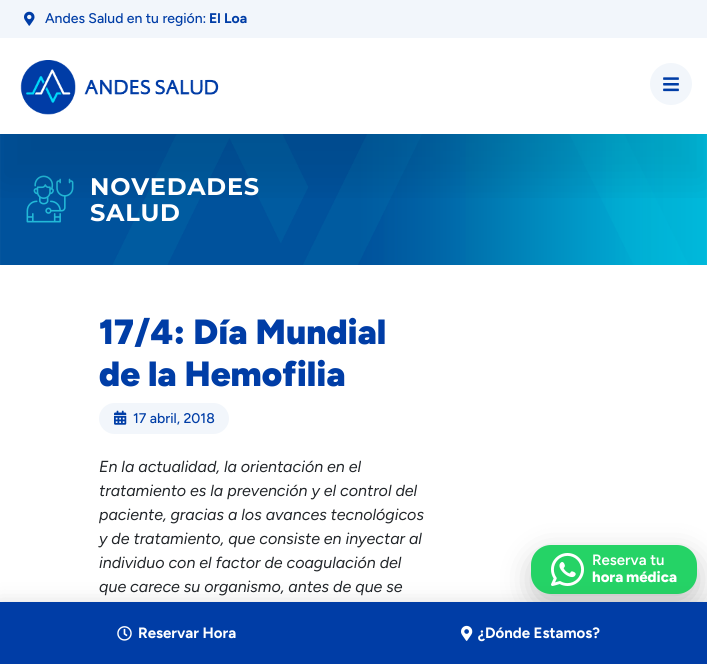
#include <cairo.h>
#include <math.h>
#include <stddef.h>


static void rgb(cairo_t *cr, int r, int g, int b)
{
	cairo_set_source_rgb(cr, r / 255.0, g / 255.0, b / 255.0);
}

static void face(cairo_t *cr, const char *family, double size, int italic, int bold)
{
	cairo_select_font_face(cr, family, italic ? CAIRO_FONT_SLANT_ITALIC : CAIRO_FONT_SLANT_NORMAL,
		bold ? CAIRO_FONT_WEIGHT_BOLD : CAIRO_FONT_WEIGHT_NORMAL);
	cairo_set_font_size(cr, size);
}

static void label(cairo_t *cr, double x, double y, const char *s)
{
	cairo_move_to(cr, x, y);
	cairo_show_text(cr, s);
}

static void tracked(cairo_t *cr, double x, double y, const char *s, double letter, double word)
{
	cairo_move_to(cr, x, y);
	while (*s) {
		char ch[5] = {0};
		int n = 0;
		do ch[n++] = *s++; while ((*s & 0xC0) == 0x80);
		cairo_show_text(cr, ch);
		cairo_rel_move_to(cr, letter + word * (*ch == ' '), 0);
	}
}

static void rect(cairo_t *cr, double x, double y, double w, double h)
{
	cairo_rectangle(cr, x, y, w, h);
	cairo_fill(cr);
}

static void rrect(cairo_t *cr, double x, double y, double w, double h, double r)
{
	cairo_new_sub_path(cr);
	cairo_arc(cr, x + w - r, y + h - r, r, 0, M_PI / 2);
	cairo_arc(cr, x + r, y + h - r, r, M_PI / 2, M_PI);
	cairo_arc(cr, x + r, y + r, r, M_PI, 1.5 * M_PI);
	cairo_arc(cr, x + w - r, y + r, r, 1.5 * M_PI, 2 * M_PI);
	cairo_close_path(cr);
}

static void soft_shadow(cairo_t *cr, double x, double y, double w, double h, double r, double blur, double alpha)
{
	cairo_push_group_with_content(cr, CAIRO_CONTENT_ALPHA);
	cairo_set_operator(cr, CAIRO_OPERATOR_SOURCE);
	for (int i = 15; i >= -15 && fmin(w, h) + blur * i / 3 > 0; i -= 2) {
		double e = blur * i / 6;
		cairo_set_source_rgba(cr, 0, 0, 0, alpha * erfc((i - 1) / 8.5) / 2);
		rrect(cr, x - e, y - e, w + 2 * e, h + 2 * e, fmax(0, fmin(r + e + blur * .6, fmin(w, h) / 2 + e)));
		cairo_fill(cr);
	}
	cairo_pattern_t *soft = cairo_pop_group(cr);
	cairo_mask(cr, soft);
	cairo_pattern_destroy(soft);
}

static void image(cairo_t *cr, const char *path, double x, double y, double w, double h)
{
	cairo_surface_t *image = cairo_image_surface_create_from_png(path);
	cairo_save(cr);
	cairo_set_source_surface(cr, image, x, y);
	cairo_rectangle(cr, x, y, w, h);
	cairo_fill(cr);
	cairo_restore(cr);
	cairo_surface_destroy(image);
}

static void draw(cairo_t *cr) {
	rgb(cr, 255, 255, 255);
	cairo_paint(cr);
	rgb(cr, 242, 246, 251);
	rect(cr, 0, 0, 707, 38);
	image(cr, "image0.png", 24, 11, 11, 15);
	face(cr, "Figtree Medium", 14, 0, 0);
	rgb(cr, 0, 61, 166);
	label(cr, 45, 23, "Andes Salud en tu región:");
	face(cr, "Figtree", 14, 0, 1);
	label(cr, 209, 23, "El Loa");
	image(cr, "image3.png", 0, 134, 707, 131);
	image(cr, "image4.png", 26, 175, 48, 48);
	cairo_save(cr);
	cairo_rectangle(cr, 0, 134, 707, 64);
	cairo_clip(cr);
	rgb(cr, 0, 0, 0);
	soft_shadow(cr, 0, 87, 707, 95, 0, 21, 0.09);
	cairo_restore(cr);
	image(cr, "image1.png", 20, 60, 199, 55);
	rgb(cr, 242, 246, 251);
	cairo_arc(cr, 671, 84, 21, 0, 2 * M_PI);
	cairo_fill(cr);
	image(cr, "image2.png", 663, 77, 16, 15);
	rgb(cr, 255, 255, 255);
	rect(cr, 0, 133, 707, 1);
	face(cr, "Montserrat", 24, 0, 1);
	tracked(cr, 90, 195, "NOVEDADES", 0.75, 0);
	tracked(cr, 90, 221, "SALUD", 0.75, 0);
	face(cr, "Figtree Black", 35, 0, 0);
	rgb(cr, 0, 61, 166);
	label(cr, 99, 344, "17/4: Día Mundial");
	label(cr, 99, 386, "de la Hemofilia");
	rgb(cr, 242, 246, 251);
	rrect(cr, 99, 403, 130, 31, 15.5);
	cairo_fill(cr);
	image(cr, "image5.png", 114, 410, 13, 15);
	face(cr, "Figtree Medium", 14, 0, 0);
	rgb(cr, 0, 61, 166);
	label(cr, 133, 423, "17 abril, 2018");
	face(cr, "Figtree", 16, 1, 0);
	rgb(cr, 33, 37, 41);
	label(cr, 99, 472, "En la actualidad, la orientación en el");
	label(cr, 99, 496, "tratamiento es la prevención y el control del");
	label(cr, 99, 520, "paciente, gracias a los avances tecnológicos");
	label(cr, 99, 544, "y de tratamiento, que consiste en inyectar al");
	label(cr, 99, 568, "individuo con el factor de coagulación del");
	label(cr, 99, 592, "que carece su organismo, antes de que se");
	rgb(cr, 0, 0, 0);
	soft_shadow(cr, 532, 555, 166, 49, 20, 15, 0.22);
	rgb(cr, 37, 211, 102);
	rrect(cr, 531, 545, 166, 49, 20);
	cairo_fill(cr);
	image(cr, "image6.png", 551, 553, 33, 33);
	face(cr, "Figtree SemiBold", 15, 0, 0);
	rgb(cr, 255, 255, 255);
	label(cr, 592, 565, "Reserva tu");
	face(cr, "Figtree ExtraBold", 15, 0, 0);
	tracked(cr, 592, 582, "hora médica", 0, -1);
	rgb(cr, 0, 0, 0);
	soft_shadow(cr, -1, 607, 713, 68, 0, 11.5, 0.2);
	rgb(cr, 0, 61, 166);
	rect(cr, 0, 602, 707, 62);
	image(cr, "image7.png", 117, 626, 15, 15);
	face(cr, "Figtree", 15, 0, 1);
	rgb(cr, 255, 255, 255);
	label(cr, 138, 638, "Reservar Hora");
	image(cr, "image8.png", 461, 625, 12, 16);
	label(cr, 478, 638, "¿Dónde Estamos?");
}

int main(void) {
	cairo_surface_t *surface = cairo_image_surface_create(CAIRO_FORMAT_RGB24, 707, 664);
	cairo_t *cr = cairo_create(surface);
	cairo_font_options_t *options = cairo_font_options_create();
	cairo_font_options_set_hint_metrics(options, CAIRO_HINT_METRICS_OFF);
	cairo_font_options_set_hint_style(options, CAIRO_HINT_STYLE_NONE);
	cairo_set_font_options(cr, options);
	cairo_set_miter_limit(cr, 4);
	draw(cr);
	cairo_surface_write_to_png(surface, "render.png");
	cairo_font_options_destroy(options);
	cairo_destroy(cr);
	cairo_surface_destroy(surface);
	return 0;
}
